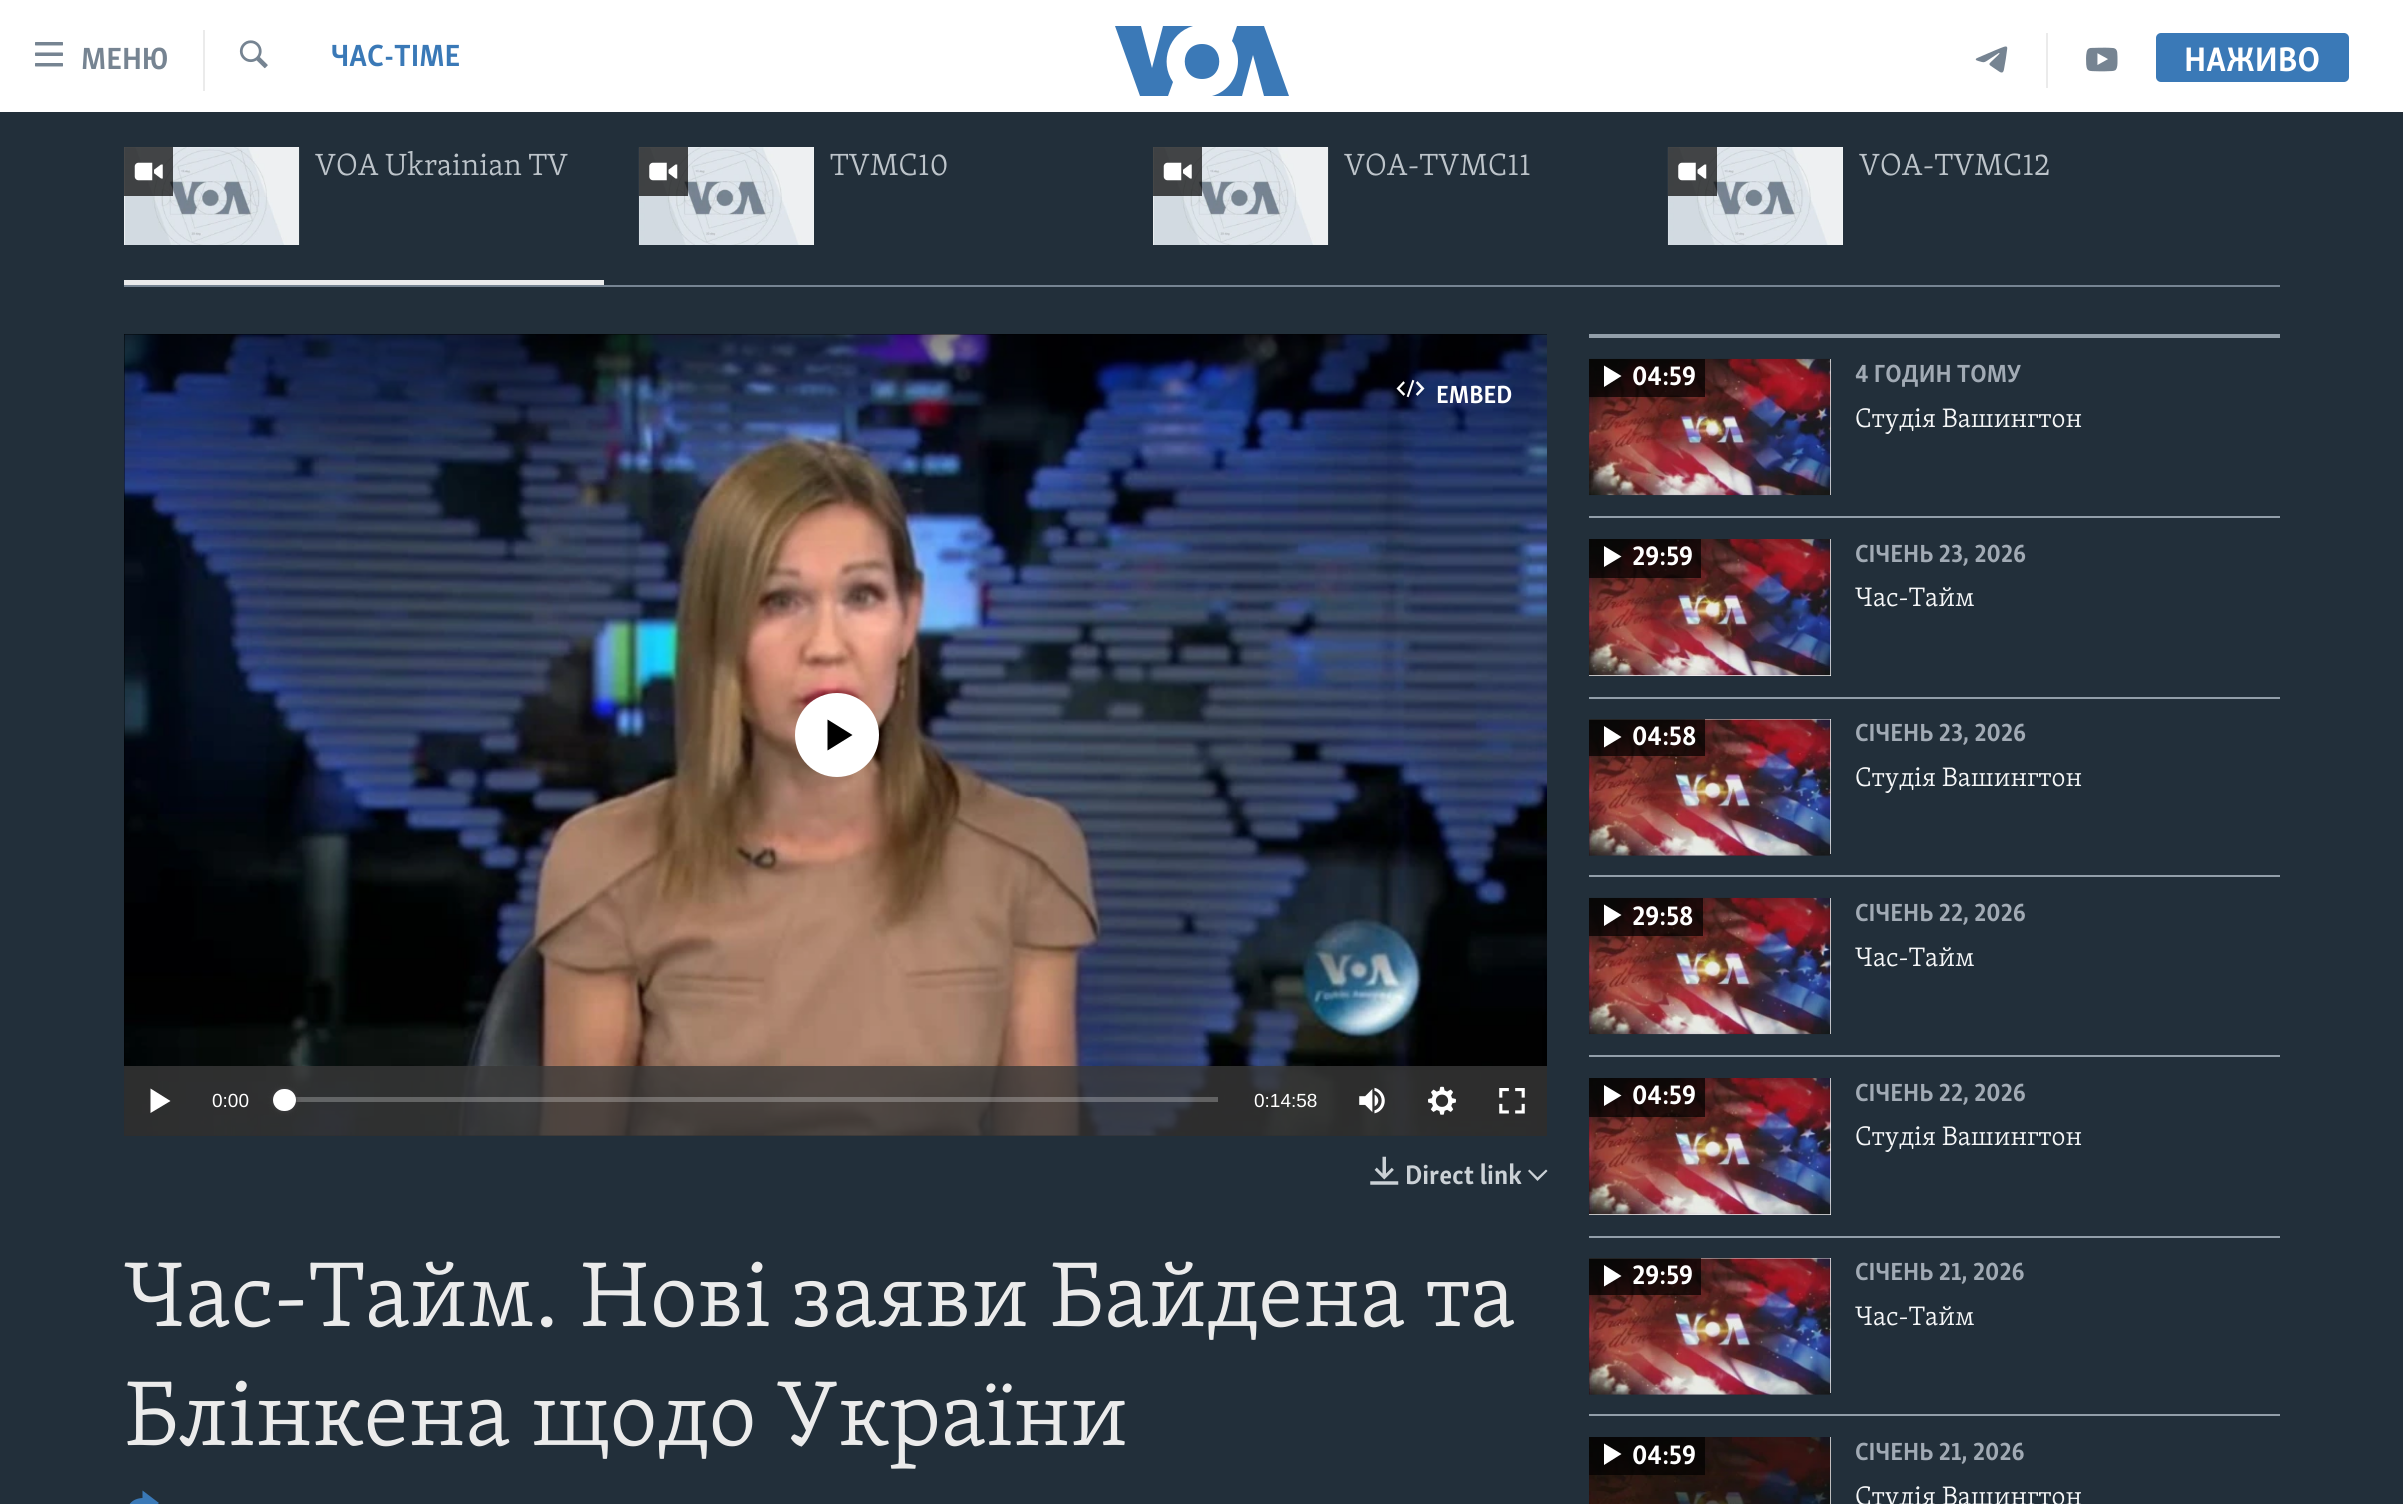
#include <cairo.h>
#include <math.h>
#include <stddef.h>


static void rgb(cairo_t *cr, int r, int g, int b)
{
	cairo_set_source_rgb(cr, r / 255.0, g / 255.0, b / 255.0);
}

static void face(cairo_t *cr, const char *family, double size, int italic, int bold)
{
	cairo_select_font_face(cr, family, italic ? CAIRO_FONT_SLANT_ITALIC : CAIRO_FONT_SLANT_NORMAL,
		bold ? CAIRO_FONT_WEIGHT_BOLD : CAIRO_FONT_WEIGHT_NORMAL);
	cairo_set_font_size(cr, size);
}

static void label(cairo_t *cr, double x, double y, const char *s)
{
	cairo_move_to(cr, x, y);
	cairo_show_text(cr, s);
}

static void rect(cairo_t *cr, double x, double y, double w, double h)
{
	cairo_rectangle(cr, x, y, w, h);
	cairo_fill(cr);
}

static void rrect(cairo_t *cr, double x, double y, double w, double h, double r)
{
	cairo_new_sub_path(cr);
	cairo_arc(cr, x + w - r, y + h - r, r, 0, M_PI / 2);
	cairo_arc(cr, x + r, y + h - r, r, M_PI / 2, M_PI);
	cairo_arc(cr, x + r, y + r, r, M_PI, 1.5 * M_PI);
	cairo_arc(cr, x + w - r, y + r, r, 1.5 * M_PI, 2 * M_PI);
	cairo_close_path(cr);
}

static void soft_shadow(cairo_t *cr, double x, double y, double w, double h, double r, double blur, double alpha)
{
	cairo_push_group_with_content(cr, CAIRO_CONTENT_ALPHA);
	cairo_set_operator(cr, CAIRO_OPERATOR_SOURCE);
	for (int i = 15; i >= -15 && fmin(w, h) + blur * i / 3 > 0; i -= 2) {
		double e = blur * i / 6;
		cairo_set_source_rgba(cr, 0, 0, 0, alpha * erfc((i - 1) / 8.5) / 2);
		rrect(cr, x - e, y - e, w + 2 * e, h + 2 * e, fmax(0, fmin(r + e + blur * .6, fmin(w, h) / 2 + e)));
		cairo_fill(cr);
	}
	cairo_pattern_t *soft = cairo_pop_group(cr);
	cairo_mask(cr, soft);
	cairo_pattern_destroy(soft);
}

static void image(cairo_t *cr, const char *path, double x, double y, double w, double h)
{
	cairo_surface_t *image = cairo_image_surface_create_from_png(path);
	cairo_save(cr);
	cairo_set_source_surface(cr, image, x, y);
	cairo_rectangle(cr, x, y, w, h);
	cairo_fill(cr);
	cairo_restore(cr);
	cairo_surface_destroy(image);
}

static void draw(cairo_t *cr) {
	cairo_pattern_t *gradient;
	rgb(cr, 255, 255, 255);
	cairo_paint(cr);
	image(cr, "image0.png", 35, 42, 28, 25);
	face(cr, "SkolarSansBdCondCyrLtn", 31.5, 0, 1);
	rgb(cr, 118, 132, 146);
	label(cr, 81, 69, "МЕНЮ");
	rgb(cr, 235, 235, 235);
	rect(cr, 203, 30, 2, 61);
	image(cr, "image1.png", 239, 40, 29, 29);
	rgb(cr, 58, 121, 183);
	label(cr, 331, 66, "ЧАС-TIME");
	rgb(cr, 59, 121, 183);
	cairo_new_path(cr);
	cairo_move_to(cr, 1173, 82);
	cairo_line_to(cr, 1168, 96);
	cairo_line_to(cr, 1140, 96);
	cairo_line_to(cr, 1115, 26);
	cairo_line_to(cr, 1141, 26);
	cairo_line_to(cr, 1152, 68);
	cairo_line_to(cr, 1163, 26);
	cairo_line_to(cr, 1193, 26);
	cairo_curve_to(cr, 1169, 33, 1159, 62, 1173, 82);
	cairo_close_path(cr);
	cairo_move_to(cr, 1202, 44);
	cairo_curve_to(cr, 1179, 44, 1179, 79, 1202, 79);
	cairo_curve_to(cr, 1225, 79, 1225, 44, 1202, 44);
	cairo_close_path(cr);
	cairo_move_to(cr, 1238, 61);
	cairo_curve_to(cr, 1238, 78, 1227, 92, 1212, 96);
	cairo_line_to(cr, 1242, 96);
	cairo_line_to(cr, 1253, 55);
	cairo_line_to(cr, 1264, 96);
	cairo_line_to(cr, 1289, 96);
	cairo_line_to(cr, 1264, 26);
	cairo_line_to(cr, 1237, 26);
	cairo_line_to(cr, 1232, 41);
	cairo_curve_to(cr, 1236, 46, 1238, 54, 1238, 61);
	cairo_close_path(cr);
	cairo_fill(cr);
	rgb(cr, 235, 235, 235);
	rect(cr, 2046, 33, 2, 55);
	image(cr, "image2.png", 1975, 46, 33, 27);
	image(cr, "image3.png", 2086, 47, 32, 25);
	rgb(cr, 58, 121, 183);
	rrect(cr, 2156, 33, 193, 49, 5);
	cairo_fill(cr);
	face(cr, "SkolarSansBdCondCyrLtn", 35, 0, 1);
	rgb(cr, 255, 255, 255);
	label(cr, 2184, 71, "НАЖИВО");
	rgb(cr, 34, 47, 58);
	rect(cr, 0, 112, 2403, 1392);
	rgb(cr, 118, 132, 146);
	rect(cr, 124, 285, 2156, 2);
	rgb(cr, 235, 235, 235);
	rect(cr, 124, 280, 480, 5);
	rgb(cr, 246, 247, 248);
	rect(cr, 124, 147, 175, 98);
	image(cr, "image4.png", 124, 147, 176, 98);
	cairo_set_source_rgba(cr, 0, 0, 0, 0.7);
	rect(cr, 124, 147, 49, 49);
	image(cr, "image5.png", 134, 162, 29, 19);
	face(cr, "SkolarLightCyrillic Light", 31.5, 0, 0);
	rgb(cr, 189, 196, 202);
	label(cr, 315, 175, "VOA Ukrainian TV");
	rgb(cr, 246, 247, 248);
	rect(cr, 639, 147, 175, 98);
	image(cr, "image6.png", 638, 147, 176, 98);
	cairo_set_source_rgba(cr, 0, 0, 0, 0.7);
	rect(cr, 639, 147, 49, 49);
	image(cr, "image7.png", 649, 162, 29, 19);
	rgb(cr, 189, 196, 202);
	label(cr, 830, 175, "TVMC10");
	rgb(cr, 246, 247, 248);
	rect(cr, 1153, 147, 175, 98);
	image(cr, "image8.png", 1153, 147, 176, 98);
	cairo_set_source_rgba(cr, 0, 0, 0, 0.7);
	rect(cr, 1153, 147, 49, 49);
	image(cr, "image5.png", 1163, 162, 29, 19);
	rgb(cr, 189, 196, 202);
	label(cr, 1344, 175, "VOA-TVMC11");
	rgb(cr, 246, 247, 248);
	rect(cr, 1668, 147, 175, 98);
	image(cr, "image9.png", 1667, 147, 176, 98);
	cairo_set_source_rgba(cr, 0, 0, 0, 0.7);
	rect(cr, 1668, 147, 49, 49);
	image(cr, "image7.png", 1678, 162, 29, 19);
	rgb(cr, 189, 196, 202);
	label(cr, 1859, 175, "VOA-TVMC12");
	rgb(cr, 0, 0, 0);
	rect(cr, 124, 334, 1423, 802);
	image(cr, "image10.png", 124, 334, 1423, 802);
	gradient = cairo_pattern_create_linear(836, 334, 836, 457);
	cairo_pattern_add_color_stop_rgba(gradient, 0, 0, 0, 0, 0.5);
	cairo_pattern_add_color_stop_rgba(gradient, 1, 0, 0, 0, 0);
	cairo_set_source(cr, gradient);
	cairo_pattern_destroy(gradient);
	rect(cr, 124, 334, 1423, 118);
	image(cr, "image11.png", 1396, 379, 29, 19);
	face(cr, "SkolarSansBdCondCyrLtn", 25.5, 0, 1);
	rgb(cr, 255, 255, 255);
	label(cr, 1436, 403, "EMBED");
	cairo_new_path(cr);
	cairo_arc(cr, 837, 735, 42, 0, 2 * M_PI);
	cairo_fill(cr);
	rgb(cr, 0, 0, 0);
	cairo_new_path(cr);
	cairo_move_to(cr, 827.5, 750.5);
	cairo_line_to(cr, 852.5, 735);
	cairo_line_to(cr, 827.5, 719.5);
	cairo_close_path(cr);
	cairo_fill(cr);
	cairo_set_source_rgba(cr, 0.22, 0.22, 0.22, 0.8);
	rect(cr, 124, 1066, 1423, 70);
	rgb(cr, 255, 255, 255);
	cairo_new_path(cr);
	cairo_move_to(cr, 150.5, 1113);
	cairo_line_to(cr, 170.5, 1101);
	cairo_line_to(cr, 150.5, 1088.5);
	cairo_close_path(cr);
	cairo_fill(cr);
	face(cr, "Liberation Sans", 19, 0, 0);
	label(cr, 212, 1107, "0:00");
	cairo_set_source_rgba(cr, 1, 1, 1, 0.25);
	rect(cr, 295, 1097, 923, 5);
	rgb(cr, 65, 65, 68);
	soft_shadow(cr, 273, 1089, 23, 22, 11, 2.5, 1);
	rgb(cr, 255, 255, 255);
	rrect(cr, 273, 1089, 23, 22, 11);
	cairo_fill(cr);
	label(cr, 1254, 1107, "0:14:58");
	image(cr, "image12.png", 1359, 1087, 26, 27);
	image(cr, "image13.png", 1428, 1086, 28, 29);
	image(cr, "image14.png", 1499, 1088, 26, 26);
	image(cr, "image15.png", 1370, 1156, 29, 29);
	face(cr, "SkolarSansBdCondCyrLtn", 27.5, 0, 1);
	rgb(cr, 203, 209, 214);
	label(cr, 1405, 1184, "Direct link");
	cairo_new_path(cr);
	cairo_move_to(cr, 1528, 1171);
	cairo_line_to(cr, 1537.5, 1181);
	cairo_line_to(cr, 1547.5, 1171);
	cairo_line_to(cr, 1546, 1169.5);
	cairo_line_to(cr, 1537.5, 1177.5);
	cairo_line_to(cr, 1529.5, 1169.5);
	cairo_close_path(cr);
	cairo_fill(cr);
	face(cr, "SkolarLightCyrillic Light", 94.5, 0, 0);
	rgb(cr, 235, 235, 235);
	label(cr, 124, 1326, "Час-Тайм. Нові заяви Байдена та");
	label(cr, 124, 1445, "Блінкена щодо України");
	rgb(cr, 58, 121, 183);
	cairo_new_path(cr);
	cairo_move_to(cr, 126, 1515.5);
	cairo_curve_to(cr, 126.5, 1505, 132, 1498.5, 142.5, 1498);
	cairo_line_to(cr, 142.5, 1490.5);
	cairo_line_to(cr, 159, 1503);
	cairo_line_to(cr, 142.5, 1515.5);
	cairo_line_to(cr, 142.5, 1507);
	cairo_curve_to(cr, 136.5, 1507, 129, 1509, 126, 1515.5);
	cairo_close_path(cr);
	cairo_fill(cr);
	rgb(cr, 146, 158, 169);
	rect(cr, 1589, 334, 691, 4);
	rgb(cr, 246, 247, 248);
	rect(cr, 1830, 359, 1, 136);
	image(cr, "image16.png", 1589, 358, 242, 138);
	cairo_set_source_rgba(cr, 0, 0, 0, 0.7);
	rect(cr, 1589, 359, 116, 38);
	rgb(cr, 255, 255, 255);
	cairo_new_path(cr);
	cairo_move_to(cr, 1604, 387);
	cairo_line_to(cr, 1621.5, 376);
	cairo_line_to(cr, 1604, 365.5);
	cairo_close_path(cr);
	cairo_fill(cr);
	face(cr, "SkolarSansBdCondCyrLtn", 27.5, 0, 1);
	label(cr, 1632, 385, "04:59");
	face(cr, "SkolarSansBdCondCyrLtn", 25.5, 0, 1);
	rgb(cr, 161, 170, 180);
	label(cr, 1855, 382, "4 ГОДИН ТОМУ");
	face(cr, "SkolarLightCyrillic Light", 27.5, 0, 0);
	rgb(cr, 246, 247, 248);
	label(cr, 1855, 427, "Студія Вашингтон");
	rgb(cr, 146, 158, 169);
	rect(cr, 1589, 516, 691, 2);
	rgb(cr, 246, 247, 248);
	rect(cr, 1589, 539, 242, 137);
	image(cr, "image17.png", 1589, 539, 242, 137);
	cairo_set_source_rgba(cr, 0, 0, 0, 0.7);
	rect(cr, 1589, 539, 112, 39);
	rgb(cr, 255, 255, 255);
	cairo_new_path(cr);
	cairo_move_to(cr, 1604, 567);
	cairo_line_to(cr, 1621.5, 556.5);
	cairo_line_to(cr, 1604, 546);
	cairo_close_path(cr);
	cairo_fill(cr);
	face(cr, "SkolarSansBdCondCyrLtn", 27.5, 0, 1);
	label(cr, 1632, 565, "29:59");
	face(cr, "SkolarSansBdCondCyrLtn", 25.5, 0, 1);
	rgb(cr, 161, 170, 180);
	label(cr, 1855, 562, "СІЧЕНЬ 23, 2026");
	face(cr, "SkolarLightCyrillic Light", 27.5, 0, 0);
	rgb(cr, 246, 247, 248);
	label(cr, 1855, 606, "Час-Тайм");
	rgb(cr, 146, 158, 169);
	rect(cr, 1589, 697, 691, 2);
	rgb(cr, 246, 247, 248);
	rect(cr, 1589, 719, 242, 135);
	image(cr, "image18.png", 1589, 719, 242, 137);
	cairo_set_source_rgba(cr, 0, 0, 0, 0.7);
	rect(cr, 1589, 719, 116, 37);
	rgb(cr, 255, 255, 255);
	cairo_new_path(cr);
	cairo_move_to(cr, 1604, 747.5);
	cairo_line_to(cr, 1621.5, 737);
	cairo_line_to(cr, 1604, 726);
	cairo_close_path(cr);
	cairo_fill(cr);
	face(cr, "SkolarSansBdCondCyrLtn", 27.5, 0, 1);
	label(cr, 1632, 745, "04:58");
	face(cr, "SkolarSansBdCondCyrLtn", 25.5, 0, 1);
	rgb(cr, 161, 170, 180);
	label(cr, 1855, 741, "СІЧЕНЬ 23, 2026");
	face(cr, "SkolarLightCyrillic Light", 27.5, 0, 0);
	rgb(cr, 246, 247, 248);
	label(cr, 1855, 786, "Студія Вашингтон");
	rgb(cr, 146, 158, 169);
	rect(cr, 1589, 875, 691, 2);
	rgb(cr, 246, 247, 248);
	rect(cr, 1830, 898, 1, 136);
	image(cr, "image19.png", 1589, 897, 242, 138);
	cairo_set_source_rgba(cr, 0, 0, 0, 0.7);
	rect(cr, 1589, 898, 114, 38);
	rgb(cr, 255, 255, 255);
	cairo_new_path(cr);
	cairo_move_to(cr, 1604, 926);
	cairo_line_to(cr, 1621.5, 915);
	cairo_line_to(cr, 1604, 904.5);
	cairo_close_path(cr);
	cairo_fill(cr);
	face(cr, "SkolarSansBdCondCyrLtn", 27.5, 0, 1);
	label(cr, 1632, 925, "29:58");
	face(cr, "SkolarSansBdCondCyrLtn", 25.5, 0, 1);
	rgb(cr, 161, 170, 180);
	label(cr, 1855, 921, "СІЧЕНЬ 22, 2026");
	face(cr, "SkolarLightCyrillic Light", 27.5, 0, 0);
	rgb(cr, 246, 247, 248);
	label(cr, 1855, 966, "Час-Тайм");
	rgb(cr, 146, 158, 169);
	rect(cr, 1589, 1055, 691, 2);
	rgb(cr, 246, 247, 248);
	rect(cr, 1589, 1078, 242, 137);
	image(cr, "image20.png", 1589, 1078, 242, 137);
	cairo_set_source_rgba(cr, 0, 0, 0, 0.7);
	rect(cr, 1589, 1078, 116, 39);
	rgb(cr, 255, 255, 255);
	cairo_new_path(cr);
	cairo_move_to(cr, 1604, 1106);
	cairo_line_to(cr, 1621.5, 1095.5);
	cairo_line_to(cr, 1604, 1085);
	cairo_close_path(cr);
	cairo_fill(cr);
	face(cr, "SkolarSansBdCondCyrLtn", 27.5, 0, 1);
	label(cr, 1632, 1104, "04:59");
	face(cr, "SkolarSansBdCondCyrLtn", 25.5, 0, 1);
	rgb(cr, 161, 170, 180);
	label(cr, 1855, 1101, "СІЧЕНЬ 22, 2026");
	face(cr, "SkolarLightCyrillic Light", 27.5, 0, 0);
	rgb(cr, 246, 247, 248);
	label(cr, 1855, 1145, "Студія Вашингтон");
	rgb(cr, 146, 158, 169);
	rect(cr, 1589, 1236, 691, 2);
	rgb(cr, 246, 247, 248);
	rect(cr, 1589, 1258, 242, 135);
	image(cr, "image21.png", 1589, 1258, 242, 137);
	cairo_set_source_rgba(cr, 0, 0, 0, 0.7);
	rect(cr, 1589, 1258, 112, 37);
	rgb(cr, 255, 255, 255);
	cairo_new_path(cr);
	cairo_move_to(cr, 1604, 1286.5);
	cairo_line_to(cr, 1621.5, 1276);
	cairo_line_to(cr, 1604, 1265);
	cairo_close_path(cr);
	cairo_fill(cr);
	face(cr, "SkolarSansBdCondCyrLtn", 27.5, 0, 1);
	label(cr, 1632, 1284, "29:59");
	face(cr, "SkolarSansBdCondCyrLtn", 25.5, 0, 1);
	rgb(cr, 161, 170, 180);
	label(cr, 1855, 1280, "СІЧЕНЬ 21, 2026");
	face(cr, "SkolarLightCyrillic Light", 27.5, 0, 0);
	rgb(cr, 246, 247, 248);
	label(cr, 1855, 1325, "Час-Тайм");
	rgb(cr, 146, 158, 169);
	rect(cr, 1589, 1414, 691, 2);
	rgb(cr, 246, 247, 248);
	rect(cr, 1830, 1437, 1, 67);
	image(cr, "image22.png", 1589, 1437, 242, 67);
	cairo_set_source_rgba(cr, 0, 0, 0, 0.7);
	rect(cr, 1589, 1437, 116, 38);
	rgb(cr, 255, 255, 255);
	cairo_new_path(cr);
	cairo_move_to(cr, 1604, 1465);
	cairo_line_to(cr, 1621.5, 1454);
	cairo_line_to(cr, 1604, 1443.5);
	cairo_close_path(cr);
	cairo_fill(cr);
	face(cr, "SkolarSansBdCondCyrLtn", 27.5, 0, 1);
	label(cr, 1632, 1464, "04:59");
	face(cr, "SkolarSansBdCondCyrLtn", 25.5, 0, 1);
	rgb(cr, 161, 170, 180);
	label(cr, 1855, 1460, "СІЧЕНЬ 21, 2026");
	face(cr, "SkolarLightCyrillic Light", 27.5, 0, 0);
	rgb(cr, 246, 247, 248);
	label(cr, 1855, 1505, "Студія Вашингтон");
}

int main(void) {
	cairo_surface_t *surface = cairo_image_surface_create(CAIRO_FORMAT_RGB24, 2403, 1504);
	cairo_t *cr = cairo_create(surface);
	cairo_font_options_t *options = cairo_font_options_create();
	cairo_font_options_set_hint_metrics(options, CAIRO_HINT_METRICS_OFF);
	cairo_font_options_set_hint_style(options, CAIRO_HINT_STYLE_NONE);
	cairo_set_font_options(cr, options);
	cairo_set_miter_limit(cr, 4);
	draw(cr);
	cairo_surface_write_to_png(surface, "render.png");
	cairo_font_options_destroy(options);
	cairo_destroy(cr);
	cairo_surface_destroy(surface);
	return 0;
}
